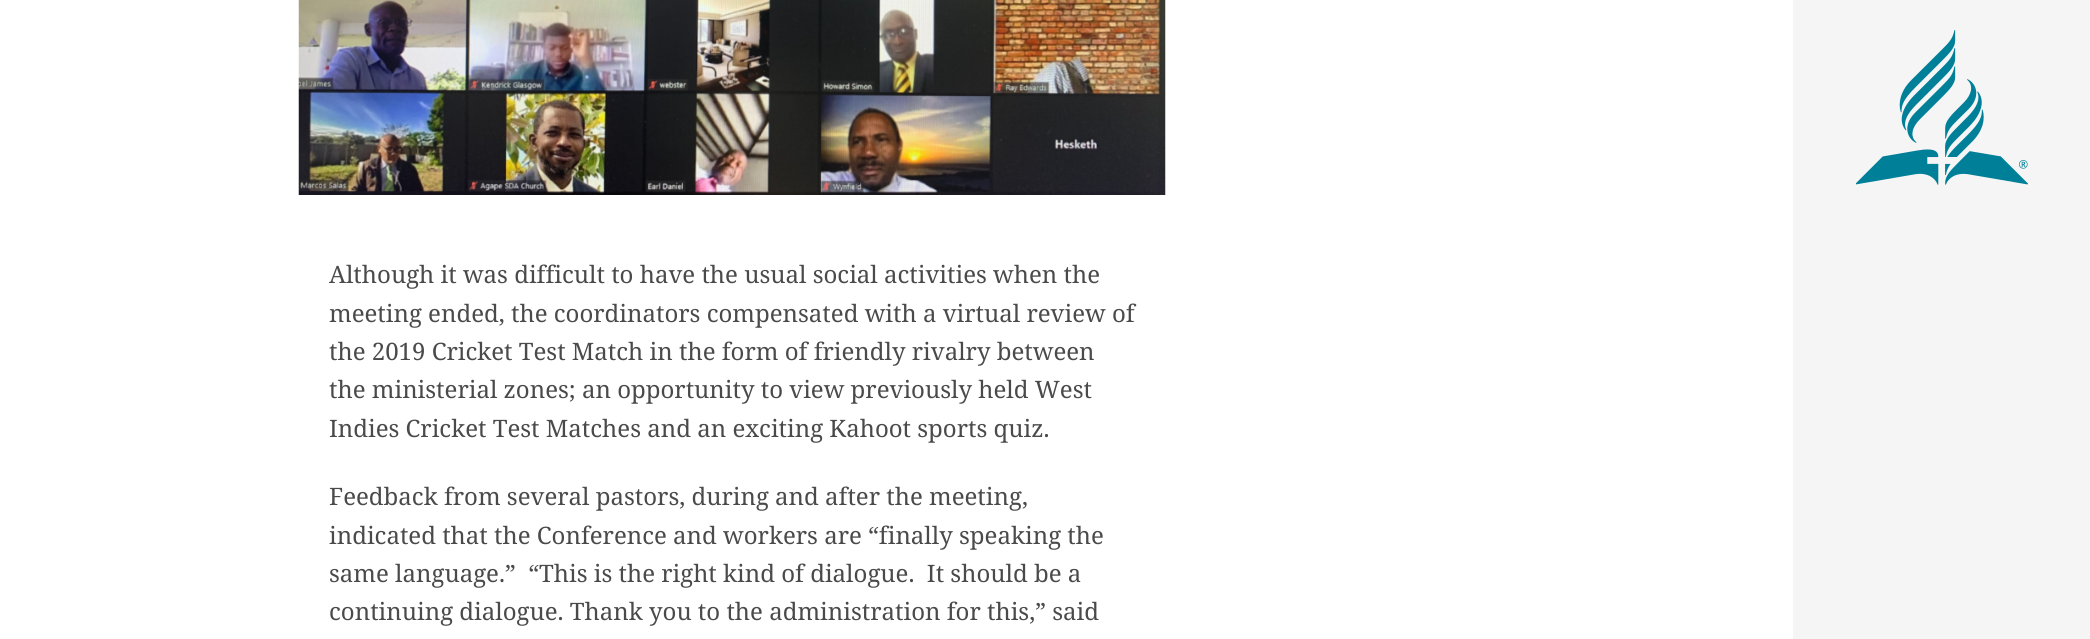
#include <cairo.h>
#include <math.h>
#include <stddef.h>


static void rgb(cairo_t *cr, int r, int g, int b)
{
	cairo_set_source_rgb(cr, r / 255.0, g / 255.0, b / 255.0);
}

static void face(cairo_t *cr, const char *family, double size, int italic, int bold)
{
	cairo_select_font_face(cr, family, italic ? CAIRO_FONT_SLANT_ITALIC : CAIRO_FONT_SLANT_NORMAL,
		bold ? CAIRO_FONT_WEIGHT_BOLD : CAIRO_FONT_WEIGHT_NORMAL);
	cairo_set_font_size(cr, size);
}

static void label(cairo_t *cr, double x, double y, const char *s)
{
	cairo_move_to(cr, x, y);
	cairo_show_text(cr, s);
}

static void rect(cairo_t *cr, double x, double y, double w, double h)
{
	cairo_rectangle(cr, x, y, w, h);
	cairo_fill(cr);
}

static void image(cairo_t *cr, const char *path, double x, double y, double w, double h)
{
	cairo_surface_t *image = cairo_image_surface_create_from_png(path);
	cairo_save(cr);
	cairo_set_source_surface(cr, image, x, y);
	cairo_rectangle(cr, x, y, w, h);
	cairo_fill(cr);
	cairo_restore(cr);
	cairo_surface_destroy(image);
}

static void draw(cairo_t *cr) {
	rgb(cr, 255, 255, 255);
	cairo_paint(cr);
	image(cr, "image0.png", 298, 0, 868, 195);
	face(cr, "Noto Serif", 24, 0, 0);
	rgb(cr, 74, 74, 74);
	label(cr, 329, 283, "Although it was difficult to have the usual social activities when the");
	label(cr, 329, 322, "meeting ended, the coordinators compensated with a virtual review of");
	label(cr, 329, 360, "the 2019 Cricket Test Match in the form of friendly rivalry between");
	label(cr, 329, 398, "the ministerial zones; an opportunity to view previously held West");
	label(cr, 329, 437, "Indies Cricket Test Matches and an exciting Kahoot sports quiz.");
	label(cr, 329, 505, "Feedback from several pastors, during and after the meeting,");
	label(cr, 329, 544, "indicated that the Conference and workers are “finally speaking the");
	label(cr, 329, 582, "same language.”  “This is the right kind of dialogue.  It should be a");
	label(cr, 329, 620, "continuing dialogue. Thank you to the administration for this,” said");
	rgb(cr, 245, 245, 245);
	rect(cr, 1793, 0, 297, 639);
	image(cr, "image1.png", 1856, 30, 172, 155);
}

int main(void) {
	cairo_surface_t *surface = cairo_image_surface_create(CAIRO_FORMAT_RGB24, 2090, 639);
	cairo_t *cr = cairo_create(surface);
	cairo_font_options_t *options = cairo_font_options_create();
	cairo_font_options_set_hint_metrics(options, CAIRO_HINT_METRICS_OFF);
	cairo_font_options_set_hint_style(options, CAIRO_HINT_STYLE_NONE);
	cairo_set_font_options(cr, options);
	cairo_set_miter_limit(cr, 4);
	draw(cr);
	cairo_surface_write_to_png(surface, "render.png");
	cairo_font_options_destroy(options);
	cairo_destroy(cr);
	cairo_surface_destroy(surface);
	return 0;
}
